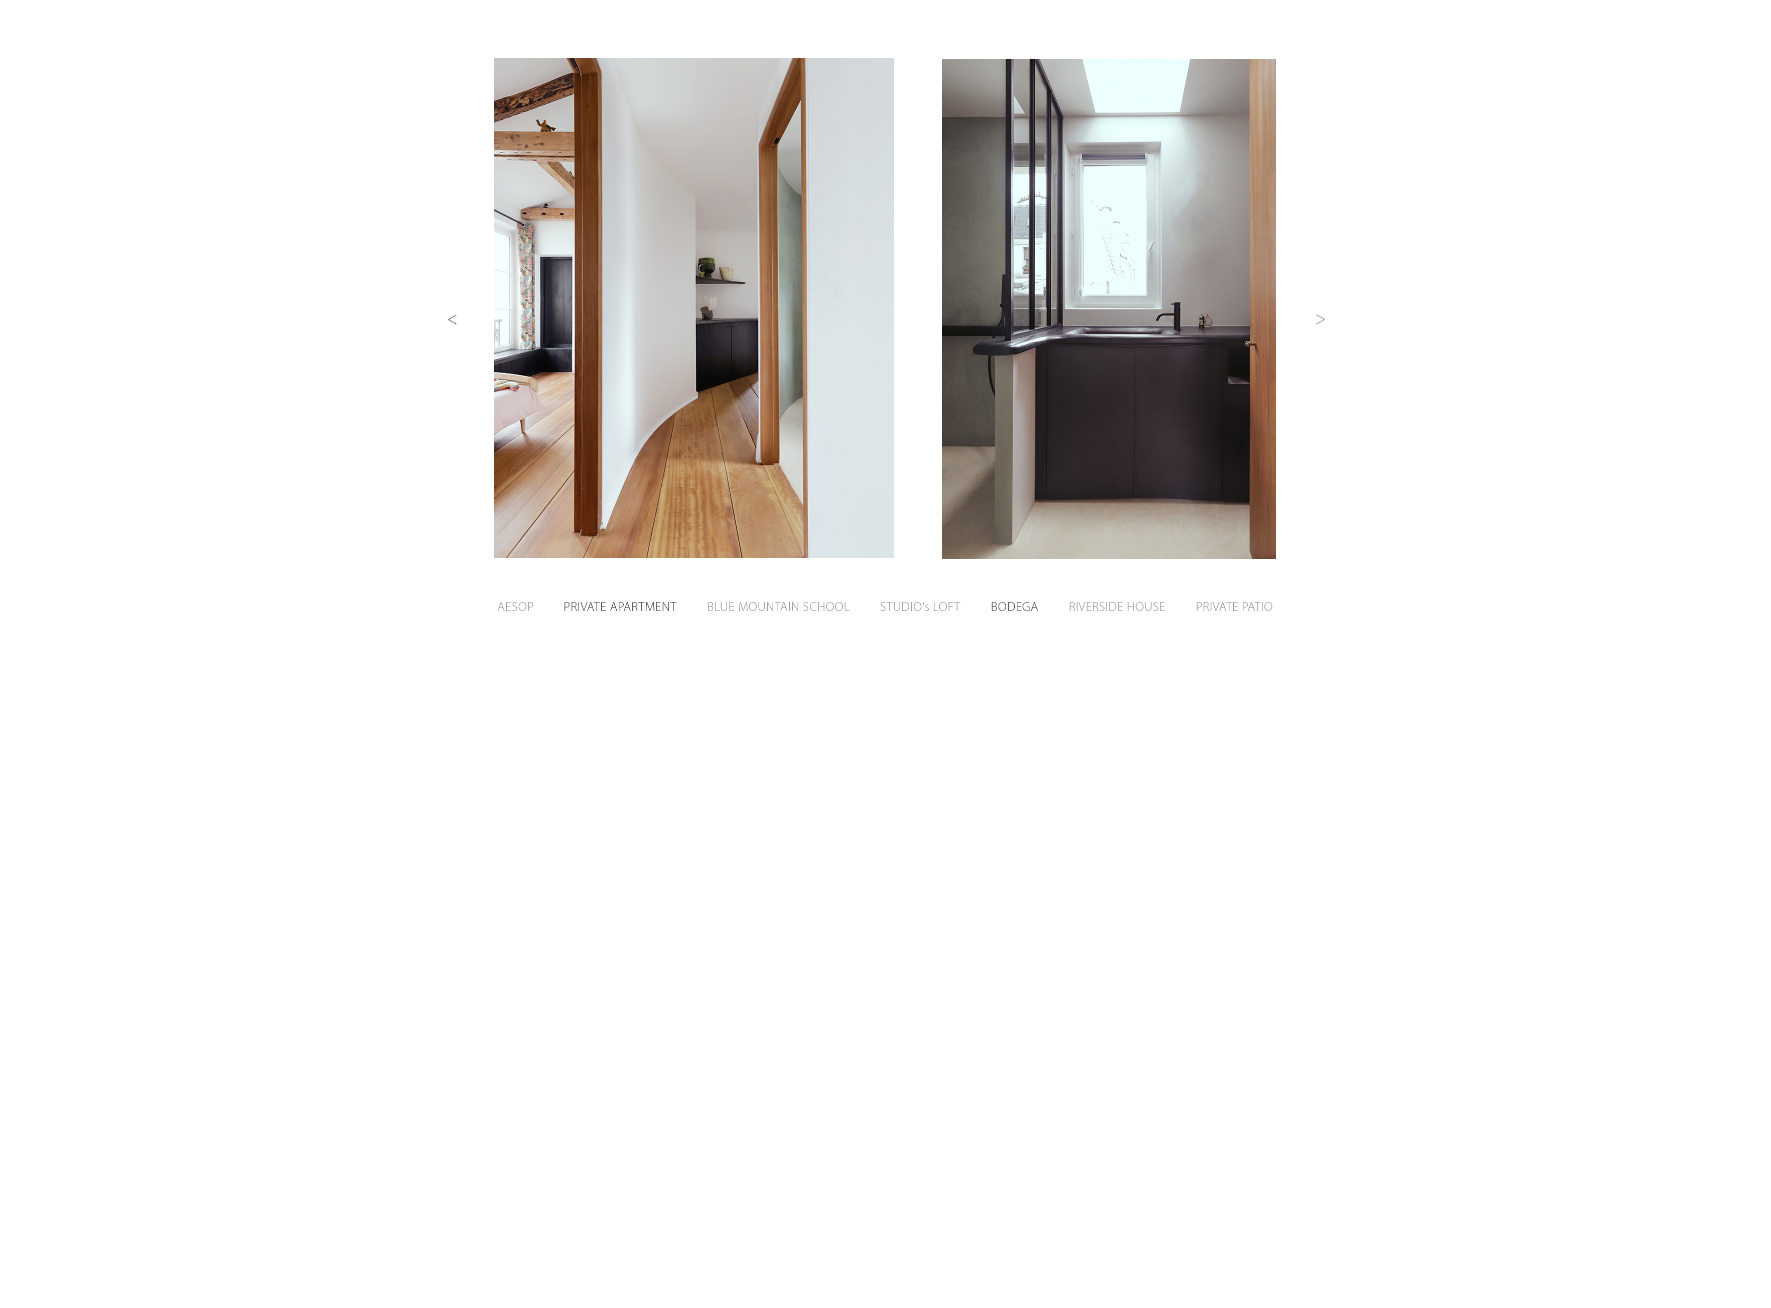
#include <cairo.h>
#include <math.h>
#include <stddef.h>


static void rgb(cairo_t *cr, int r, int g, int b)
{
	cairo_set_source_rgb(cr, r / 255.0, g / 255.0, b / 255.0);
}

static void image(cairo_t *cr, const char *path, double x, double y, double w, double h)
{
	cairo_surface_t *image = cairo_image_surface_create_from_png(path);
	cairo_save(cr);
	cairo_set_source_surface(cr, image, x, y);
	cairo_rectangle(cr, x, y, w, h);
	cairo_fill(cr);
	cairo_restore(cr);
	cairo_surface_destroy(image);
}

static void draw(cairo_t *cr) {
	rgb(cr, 255, 255, 255);
	cairo_paint(cr);
	image(cr, "image0.png", 448, 314, 9, 11);
	image(cr, "image1.png", 494, 58, 400, 500);
	image(cr, "image2.png", 942, 59, 334, 500);
	image(cr, "image3.png", 1316, 314, 10, 11);
	image(cr, "image4.png", 497, 602, 37, 9);
	image(cr, "image5.png", 564, 602, 113, 9);
	image(cr, "image6.png", 708, 602, 142, 9);
	image(cr, "image7.png", 880, 602, 81, 9);
	image(cr, "image8.png", 991, 602, 47, 9);
	image(cr, "image9.png", 1069, 602, 96, 9);
	image(cr, "image10.png", 1196, 602, 77, 9);
}

int main(void) {
	cairo_surface_t *surface = cairo_image_surface_create(CAIRO_FORMAT_RGB24, 1771, 1308);
	cairo_t *cr = cairo_create(surface);
	cairo_font_options_t *options = cairo_font_options_create();
	cairo_font_options_set_hint_metrics(options, CAIRO_HINT_METRICS_OFF);
	cairo_font_options_set_hint_style(options, CAIRO_HINT_STYLE_NONE);
	cairo_set_font_options(cr, options);
	cairo_set_miter_limit(cr, 4);
	draw(cr);
	cairo_surface_write_to_png(surface, "render.png");
	cairo_font_options_destroy(options);
	cairo_destroy(cr);
	cairo_surface_destroy(surface);
	return 0;
}
